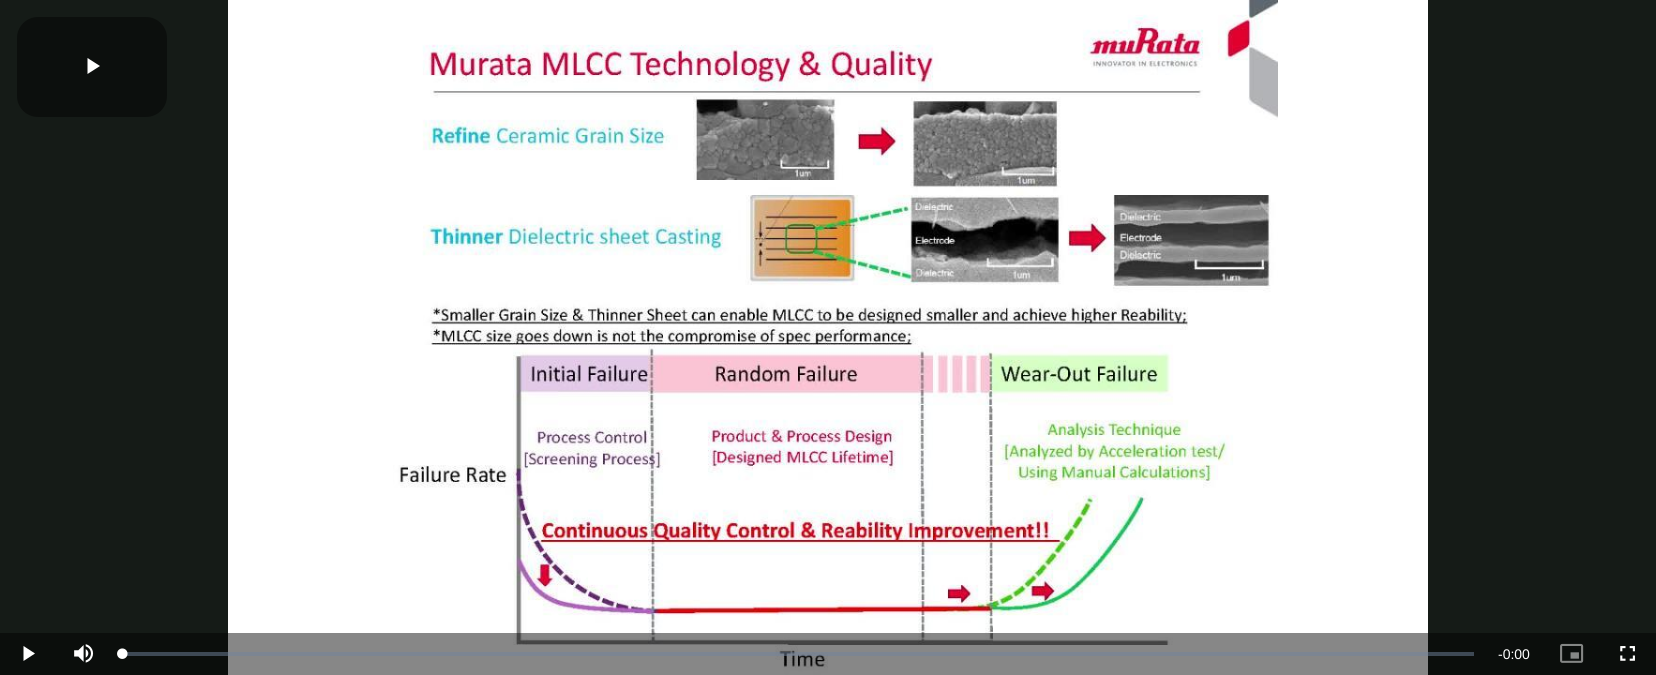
#include <cairo.h>
#include <math.h>
#include <stddef.h>


static void rgb(cairo_t *cr, int r, int g, int b)
{
	cairo_set_source_rgb(cr, r / 255.0, g / 255.0, b / 255.0);
}

static void face(cairo_t *cr, const char *family, double size, int italic, int bold)
{
	cairo_select_font_face(cr, family, italic ? CAIRO_FONT_SLANT_ITALIC : CAIRO_FONT_SLANT_NORMAL,
		bold ? CAIRO_FONT_WEIGHT_BOLD : CAIRO_FONT_WEIGHT_NORMAL);
	cairo_set_font_size(cr, size);
}

static void label(cairo_t *cr, double x, double y, const char *s)
{
	cairo_move_to(cr, x, y);
	cairo_show_text(cr, s);
}

static void rect(cairo_t *cr, double x, double y, double w, double h)
{
	cairo_rectangle(cr, x, y, w, h);
	cairo_fill(cr);
}

static void rrect(cairo_t *cr, double x, double y, double w, double h, double r)
{
	cairo_new_sub_path(cr);
	cairo_arc(cr, x + w - r, y + h - r, r, 0, M_PI / 2);
	cairo_arc(cr, x + r, y + h - r, r, M_PI / 2, M_PI);
	cairo_arc(cr, x + r, y + r, r, M_PI, 1.5 * M_PI);
	cairo_arc(cr, x + w - r, y + r, r, 1.5 * M_PI, 2 * M_PI);
	cairo_close_path(cr);
}

static void image(cairo_t *cr, const char *path, double x, double y, double w, double h)
{
	cairo_surface_t *image = cairo_image_surface_create_from_png(path);
	cairo_save(cr);
	cairo_set_source_surface(cr, image, x, y);
	cairo_rectangle(cr, x, y, w, h);
	cairo_fill(cr);
	cairo_restore(cr);
	cairo_surface_destroy(image);
}

static void draw(cairo_t *cr) {
	rgb(cr, 21, 27, 23);
	cairo_paint(cr);
	rgb(cr, 12, 15, 13);
	rrect(cr, 17, 17, 150, 100, 21);
	cairo_fill(cr);
	rgb(cr, 255, 255, 255);
	cairo_new_path(cr);
	cairo_move_to(cr, 87.5, 58);
	cairo_line_to(cr, 87.5, 74);
	cairo_line_to(cr, 100, 66);
	cairo_close_path(cr);
	cairo_fill(cr);
	image(cr, "image0.png", 228, 0, 1200, 675);
	cairo_set_source_rgba(cr, 0, 0, 0, 0.47);
	rect(cr, 0, 633, 1656, 42);
	rgb(cr, 255, 255, 255);
	cairo_new_path(cr);
	cairo_move_to(cr, 23.5, 646);
	cairo_line_to(cr, 23.5, 661);
	cairo_line_to(cr, 35, 653.5);
	cairo_close_path(cr);
	cairo_fill(cr);
	image(cr, "image1.png", 74, 644, 20, 19);
	cairo_set_source_rgba(cr, 0.451, 0.522, 0.624, 0.5);
	rect(cr, 122, 652, 1352, 4);
	image(cr, "image2.png", 117, 648, 11, 11);
	face(cr, "Liberation Sans", 14, 0, 0);
	rgb(cr, 255, 255, 255);
	label(cr, 1498, 659, "-0:00");
	image(cr, "image3.png", 1560, 643, 24, 20);
	image(cr, "image4.png", 1620, 646, 15, 15);
}

int main(void) {
	cairo_surface_t *surface = cairo_image_surface_create(CAIRO_FORMAT_RGB24, 1656, 675);
	cairo_t *cr = cairo_create(surface);
	cairo_font_options_t *options = cairo_font_options_create();
	cairo_font_options_set_hint_metrics(options, CAIRO_HINT_METRICS_OFF);
	cairo_font_options_set_hint_style(options, CAIRO_HINT_STYLE_NONE);
	cairo_set_font_options(cr, options);
	cairo_set_miter_limit(cr, 4);
	draw(cr);
	cairo_surface_write_to_png(surface, "render.png");
	cairo_font_options_destroy(options);
	cairo_destroy(cr);
	cairo_surface_destroy(surface);
	return 0;
}
